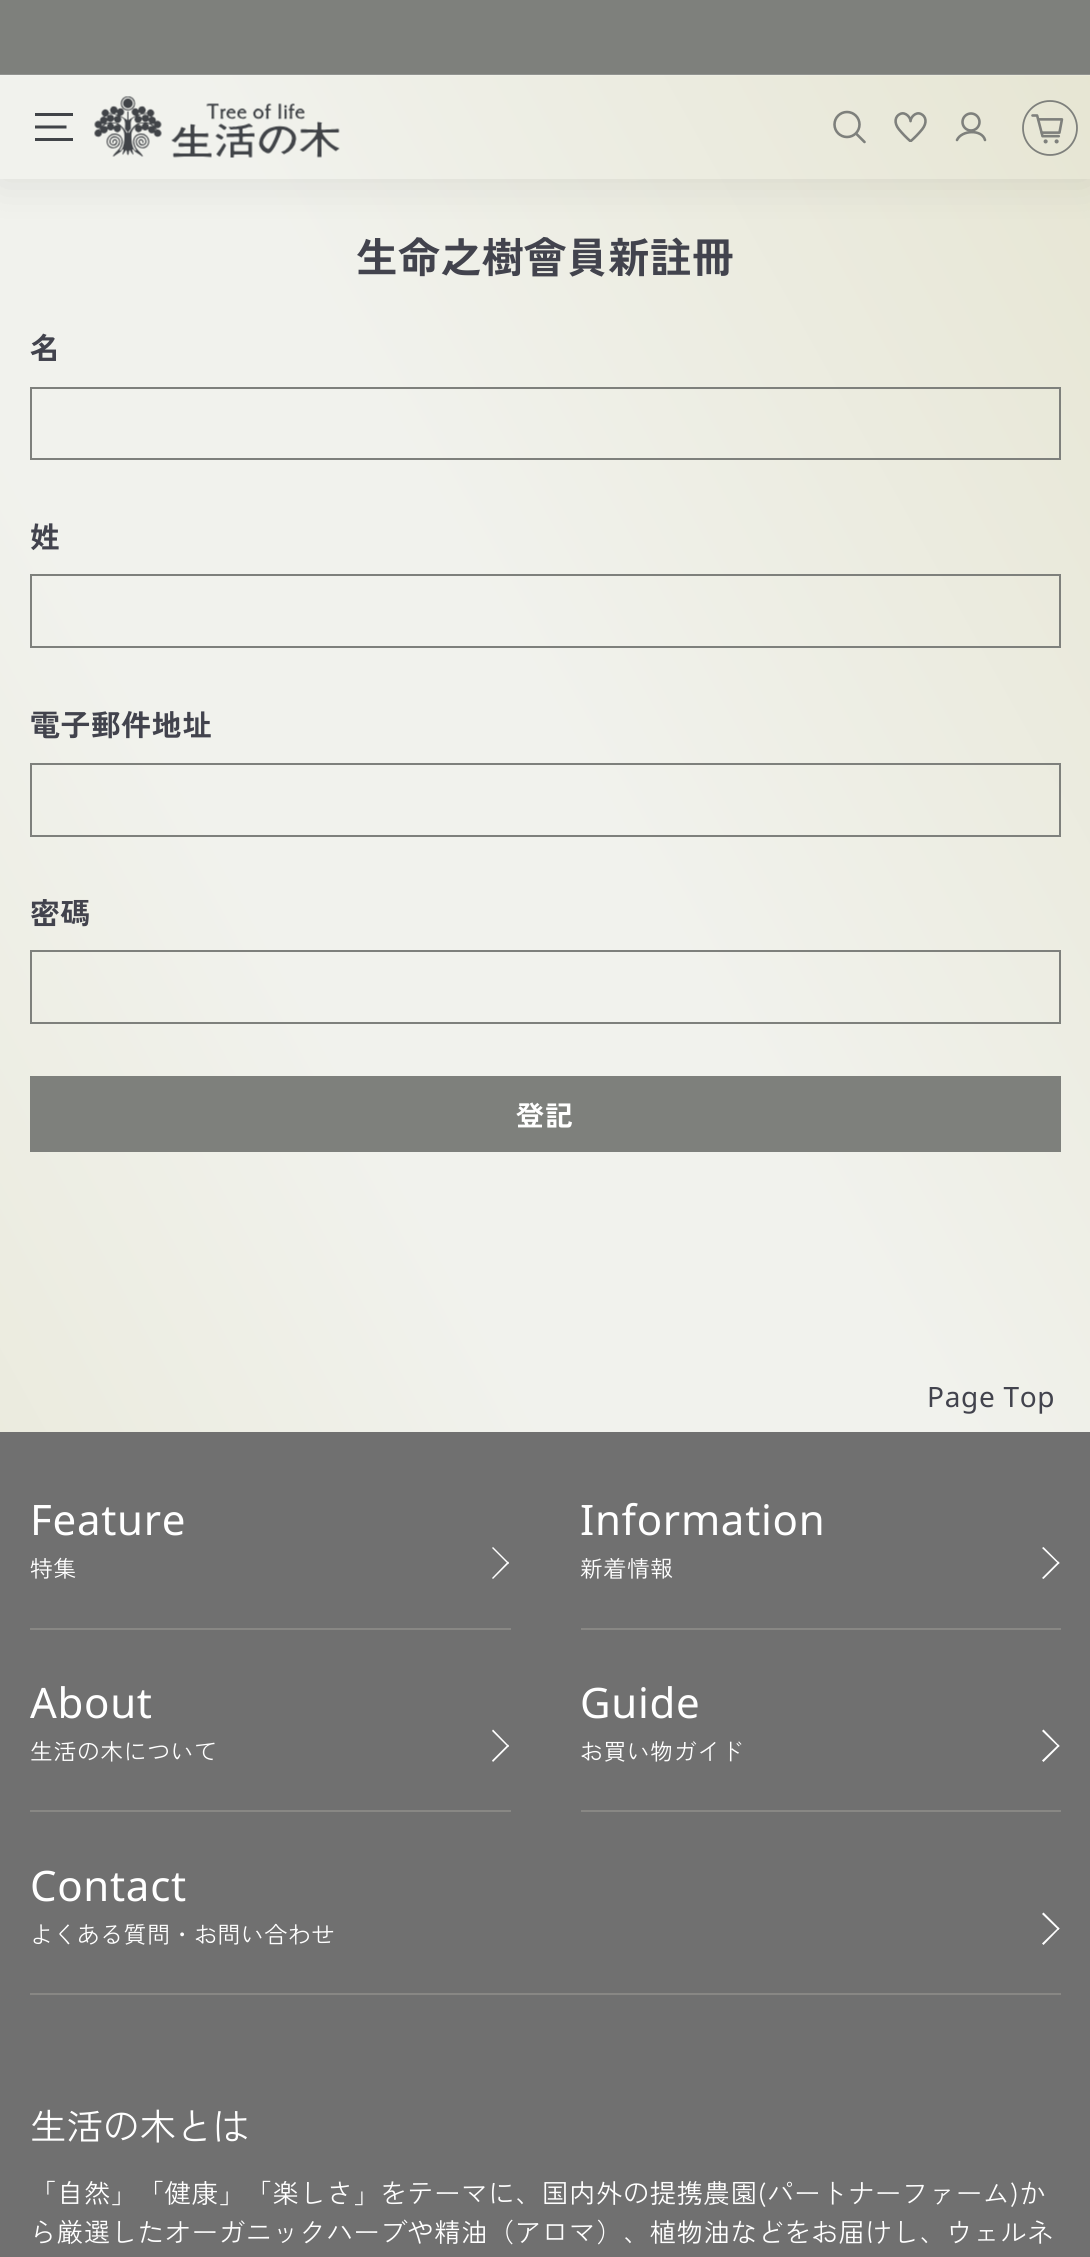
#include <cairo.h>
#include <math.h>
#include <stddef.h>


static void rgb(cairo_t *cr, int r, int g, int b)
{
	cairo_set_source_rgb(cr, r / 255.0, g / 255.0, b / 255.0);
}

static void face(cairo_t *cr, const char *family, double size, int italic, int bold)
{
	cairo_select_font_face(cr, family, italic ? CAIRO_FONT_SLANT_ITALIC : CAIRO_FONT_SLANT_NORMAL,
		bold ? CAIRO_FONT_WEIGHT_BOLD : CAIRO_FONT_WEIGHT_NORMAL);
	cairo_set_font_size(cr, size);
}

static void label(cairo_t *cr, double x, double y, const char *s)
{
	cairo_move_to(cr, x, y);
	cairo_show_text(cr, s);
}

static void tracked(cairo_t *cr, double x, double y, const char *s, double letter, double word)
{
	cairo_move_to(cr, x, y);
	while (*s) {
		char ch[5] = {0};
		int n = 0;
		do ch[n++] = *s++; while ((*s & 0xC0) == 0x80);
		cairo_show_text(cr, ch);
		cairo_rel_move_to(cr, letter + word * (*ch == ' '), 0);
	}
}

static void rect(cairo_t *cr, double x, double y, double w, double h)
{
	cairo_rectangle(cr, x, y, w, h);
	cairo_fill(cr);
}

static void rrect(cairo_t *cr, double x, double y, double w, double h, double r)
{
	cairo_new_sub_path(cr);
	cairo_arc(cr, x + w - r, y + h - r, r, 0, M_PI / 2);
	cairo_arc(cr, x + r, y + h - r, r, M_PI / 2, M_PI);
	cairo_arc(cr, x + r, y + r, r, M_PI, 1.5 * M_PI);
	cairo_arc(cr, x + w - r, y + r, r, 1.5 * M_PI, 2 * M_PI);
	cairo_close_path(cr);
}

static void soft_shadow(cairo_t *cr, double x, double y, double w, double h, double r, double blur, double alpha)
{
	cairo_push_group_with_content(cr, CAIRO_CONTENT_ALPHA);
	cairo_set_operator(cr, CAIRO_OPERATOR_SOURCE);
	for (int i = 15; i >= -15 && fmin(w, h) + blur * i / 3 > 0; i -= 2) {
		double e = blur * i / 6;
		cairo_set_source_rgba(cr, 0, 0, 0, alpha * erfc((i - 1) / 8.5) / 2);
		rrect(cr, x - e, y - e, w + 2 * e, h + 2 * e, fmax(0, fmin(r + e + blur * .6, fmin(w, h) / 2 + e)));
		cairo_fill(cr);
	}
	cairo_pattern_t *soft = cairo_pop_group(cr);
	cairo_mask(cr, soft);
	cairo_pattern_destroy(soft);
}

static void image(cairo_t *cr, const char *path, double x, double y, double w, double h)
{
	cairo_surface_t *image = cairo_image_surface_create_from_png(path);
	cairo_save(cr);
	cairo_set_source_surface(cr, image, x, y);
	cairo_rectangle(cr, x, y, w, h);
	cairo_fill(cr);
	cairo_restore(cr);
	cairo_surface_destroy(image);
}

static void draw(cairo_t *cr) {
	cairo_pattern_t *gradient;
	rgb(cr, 255, 255, 255);
	cairo_paint(cr);
	gradient = cairo_pattern_create_linear(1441, 632, -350, 1625);
	cairo_pattern_add_color_stop_rgba(gradient, 0, 0.902, 0.898, 0.824, 1);
	cairo_pattern_add_color_stop_rgba(gradient, 0.4, 0.945, 0.949, 0.929, 1);
	cairo_pattern_add_color_stop_rgba(gradient, 0.57, 0.945, 0.949, 0.929, 1);
	cairo_pattern_add_color_stop_rgba(gradient, 1, 0.902, 0.898, 0.824, 1);
	cairo_set_source(cr, gradient);
	cairo_pattern_destroy(gradient);
	rect(cr, 0, 179, 1090, 1253);
	rgb(cr, 0, 0, 0);
	soft_shadow(cr, 0, 75, 1090, 104, 0, 22, 0.1);
	rgb(cr, 126, 128, 124);
	rect(cr, 0, 0, 1090, 75);
	gradient = cairo_pattern_create_linear(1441, 632, -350, 1625);
	cairo_pattern_add_color_stop_rgba(gradient, 0, 0.902, 0.898, 0.824, 1);
	cairo_pattern_add_color_stop_rgba(gradient, 0.4, 0.945, 0.949, 0.929, 1);
	cairo_pattern_add_color_stop_rgba(gradient, 0.57, 0.945, 0.949, 0.929, 1);
	cairo_pattern_add_color_stop_rgba(gradient, 1, 0.902, 0.898, 0.824, 1);
	cairo_set_source(cr, gradient);
	cairo_pattern_destroy(gradient);
	rect(cr, 0, 75, 1090, 104);
	cairo_set_source_rgba(cr, 1, 1, 1, 0.15);
	rect(cr, 0, 74, 1090, 2);
	rgb(cr, 65, 68, 72);
	rect(cr, 35, 113, 38, 3);
	cairo_new_path(cr);
	cairo_move_to(cr, 35, 127);
	cairo_line_to(cr, 66.5, 127);
	cairo_set_line_width(cr, 3);
	cairo_stroke(cr);
	rect(cr, 35, 138, 38, 3);
	image(cr, "image0.png", 94, 96, 246, 62);
	cairo_arc(cr, 847, 124.5, 12.5, 0, 2 * M_PI);
	rgb(cr, 126, 128, 124);
	cairo_set_line_width(cr, 2.6);
	cairo_stroke(cr);
	cairo_new_path(cr);
	cairo_move_to(cr, 856.5, 134);
	cairo_line_to(cr, 864.5, 142);
	cairo_set_line_cap(cr, CAIRO_LINE_CAP_ROUND);
	cairo_stroke(cr);
	image(cr, "image1.png", 894, 112, 33, 30);
	cairo_arc(cr, 971, 122, 8.5, 0, 2 * M_PI);
	cairo_set_line_cap(cr, CAIRO_LINE_CAP_BUTT);
	cairo_stroke(cr);
	cairo_new_path(cr);
	cairo_move_to(cr, 957, 140);
	cairo_curve_to(cr, 961.5, 130, 982, 129, 985, 140);
	cairo_set_line_cap(cr, CAIRO_LINE_CAP_ROUND);
	cairo_stroke(cr);
	image(cr, "image2.png", 1022, 100, 56, 56);
	face(cr, "Zen Kaku Gothic Antique", 42, 0, 1);
	rgb(cr, 66, 67, 77);
	label(cr, 356, 273, "生命之樹會員新註冊");
	face(cr, "Zen Kaku Gothic Antique", 29.75, 0, 1);
	tracked(cr, 30, 359, "名", 0.7, 0);
	cairo_rectangle(cr, 31, 388, 1029, 71);
	rgb(cr, 126, 128, 124);
	cairo_set_line_width(cr, 2);
	cairo_set_line_cap(cr, CAIRO_LINE_CAP_BUTT);
	cairo_stroke(cr);
	rgb(cr, 66, 67, 77);
	tracked(cr, 30, 548, "姓", 0.7, 0);
	cairo_rectangle(cr, 31, 575, 1029, 72);
	rgb(cr, 126, 128, 124);
	cairo_stroke(cr);
	rgb(cr, 66, 67, 77);
	tracked(cr, 30, 736, "電子郵件地址", 0.7, 0);
	cairo_rectangle(cr, 31, 764, 1029, 72);
	rgb(cr, 126, 128, 124);
	cairo_stroke(cr);
	rgb(cr, 66, 67, 77);
	tracked(cr, 30, 924, "密碼", 0.7, 0);
	cairo_rectangle(cr, 31, 951, 1029, 72);
	rgb(cr, 126, 128, 124);
	cairo_stroke(cr);
	rect(cr, 30, 1076, 1031, 76);
	face(cr, "Zen Kaku Gothic Antique", 28, 0, 1);
	rgb(cr, 255, 255, 255);
	tracked(cr, 516, 1126, "登記", 0.7, 0);
	rgb(cr, 112, 112, 112);
	rect(cr, 0, 1432, 1090, 825);
	face(cr, "Noto Sans", 28, 0, 0);
	rgb(cr, 66, 67, 77);
	tracked(cr, 927, 1407, "Page Top", 0.7, 0);
	rgb(cr, 136, 135, 132);
	rect(cr, 30, 1628, 481, 2);
	face(cr, "Noto Sans", 42, 0, 0);
	rgb(cr, 255, 255, 255);
	tracked(cr, 30, 1535, "Feature", 0.7, 0);
	face(cr, "Zen Kaku Gothic Antique", 22.75, 0, 0);
	tracked(cr, 30, 1577, "特集", 0.7, 0);
	cairo_new_path(cr);
	cairo_move_to(cr, 493, 1547);
	cairo_line_to(cr, 509, 1563);
	cairo_line_to(cr, 508, 1564);
	cairo_line_to(cr, 492, 1548);
	cairo_close_path(cr);
	cairo_fill(cr);
	cairo_new_path(cr);
	cairo_move_to(cr, 508, 1561.5);
	cairo_line_to(cr, 509, 1563);
	cairo_line_to(cr, 493, 1579);
	cairo_line_to(cr, 492, 1578);
	cairo_close_path(cr);
	cairo_fill(cr);
	rgb(cr, 136, 135, 132);
	rect(cr, 581, 1628, 480, 2);
	face(cr, "Noto Sans", 42, 0, 0);
	rgb(cr, 255, 255, 255);
	tracked(cr, 580, 1535, "Information", 0.7, 0);
	face(cr, "Zen Kaku Gothic Antique", 22.75, 0, 0);
	tracked(cr, 580, 1577, "新着情報", 0.7, 0);
	cairo_new_path(cr);
	cairo_move_to(cr, 1043.5, 1547);
	cairo_line_to(cr, 1059.5, 1563);
	cairo_line_to(cr, 1058.5, 1564);
	cairo_line_to(cr, 1042, 1548);
	cairo_close_path(cr);
	cairo_fill(cr);
	cairo_new_path(cr);
	cairo_move_to(cr, 1058.5, 1561.5);
	cairo_line_to(cr, 1059.5, 1563);
	cairo_line_to(cr, 1043.5, 1579);
	cairo_line_to(cr, 1042, 1578);
	cairo_close_path(cr);
	cairo_fill(cr);
	rgb(cr, 136, 135, 132);
	rect(cr, 30, 1810, 481, 2);
	face(cr, "Noto Sans", 42, 0, 0);
	rgb(cr, 255, 255, 255);
	tracked(cr, 30, 1718, "About", 0.7, 0);
	face(cr, "Zen Kaku Gothic Antique", 22.75, 0, 0);
	tracked(cr, 30, 1760, "生活の木について", 0.7, 0);
	cairo_new_path(cr);
	cairo_move_to(cr, 493, 1729.5);
	cairo_line_to(cr, 509, 1746);
	cairo_line_to(cr, 508, 1747);
	cairo_line_to(cr, 492, 1731);
	cairo_close_path(cr);
	cairo_fill(cr);
	cairo_new_path(cr);
	cairo_move_to(cr, 508, 1744.5);
	cairo_line_to(cr, 509, 1746);
	cairo_line_to(cr, 493, 1762);
	cairo_line_to(cr, 492, 1760.5);
	cairo_close_path(cr);
	cairo_fill(cr);
	rgb(cr, 136, 135, 132);
	rect(cr, 581, 1810, 480, 2);
	face(cr, "Noto Sans", 42, 0, 0);
	rgb(cr, 255, 255, 255);
	tracked(cr, 580, 1718, "Guide", 0.7, 0);
	face(cr, "Zen Kaku Gothic Antique", 22.75, 0, 0);
	tracked(cr, 580, 1760, "お買い物ガイド", 0.7, 0);
	cairo_new_path(cr);
	cairo_move_to(cr, 1043.5, 1729.5);
	cairo_line_to(cr, 1059.5, 1746);
	cairo_line_to(cr, 1058.5, 1747);
	cairo_line_to(cr, 1042, 1731);
	cairo_close_path(cr);
	cairo_fill(cr);
	cairo_new_path(cr);
	cairo_move_to(cr, 1058.5, 1744.5);
	cairo_line_to(cr, 1059.5, 1746);
	cairo_line_to(cr, 1043.5, 1762);
	cairo_line_to(cr, 1042, 1760.5);
	cairo_close_path(cr);
	cairo_fill(cr);
	rgb(cr, 136, 135, 132);
	rect(cr, 30, 1993, 1031, 2);
	face(cr, "Noto Sans", 42, 0, 0);
	rgb(cr, 255, 255, 255);
	tracked(cr, 30, 1901, "Contact", 0.7, 0);
	face(cr, "Zen Kaku Gothic Antique", 22.75, 0, 0);
	tracked(cr, 30, 1943, "よくある質問・お問い合わせ", 0.7, 0);
	cairo_new_path(cr);
	cairo_move_to(cr, 1043.5, 1912.5);
	cairo_line_to(cr, 1059.5, 1928.5);
	cairo_line_to(cr, 1058.5, 1930);
	cairo_line_to(cr, 1042, 1914);
	cairo_close_path(cr);
	cairo_fill(cr);
	cairo_new_path(cr);
	cairo_move_to(cr, 1058.5, 1927.5);
	cairo_line_to(cr, 1059.5, 1928.5);
	cairo_line_to(cr, 1043.5, 1945);
	cairo_line_to(cr, 1042, 1943.5);
	cairo_close_path(cr);
	cairo_fill(cr);
	face(cr, "Zen Kaku Gothic Antique", 36.5, 0, 0);
	label(cr, 30, 2140, "生活の木とは");
	face(cr, "Zen Kaku Gothic Antique", 26.25, 0, 0);
	tracked(cr, 30, 2203, "「自然」「健康」「楽しさ」をテーマに、国内外の提携農園(パートナーファーム)か", 0.7, 0);
	tracked(cr, 30, 2242, "ら厳選したオーガニックハーブや精油（アロマ）、植物油などをお届けし、ウェルネ", 0.7, 0);
}

int main(void) {
	cairo_surface_t *surface = cairo_image_surface_create(CAIRO_FORMAT_RGB24, 1090, 2257);
	cairo_t *cr = cairo_create(surface);
	cairo_font_options_t *options = cairo_font_options_create();
	cairo_font_options_set_hint_metrics(options, CAIRO_HINT_METRICS_OFF);
	cairo_font_options_set_hint_style(options, CAIRO_HINT_STYLE_NONE);
	cairo_set_font_options(cr, options);
	cairo_set_miter_limit(cr, 4);
	draw(cr);
	cairo_surface_write_to_png(surface, "render.png");
	cairo_font_options_destroy(options);
	cairo_destroy(cr);
	cairo_surface_destroy(surface);
	return 0;
}
